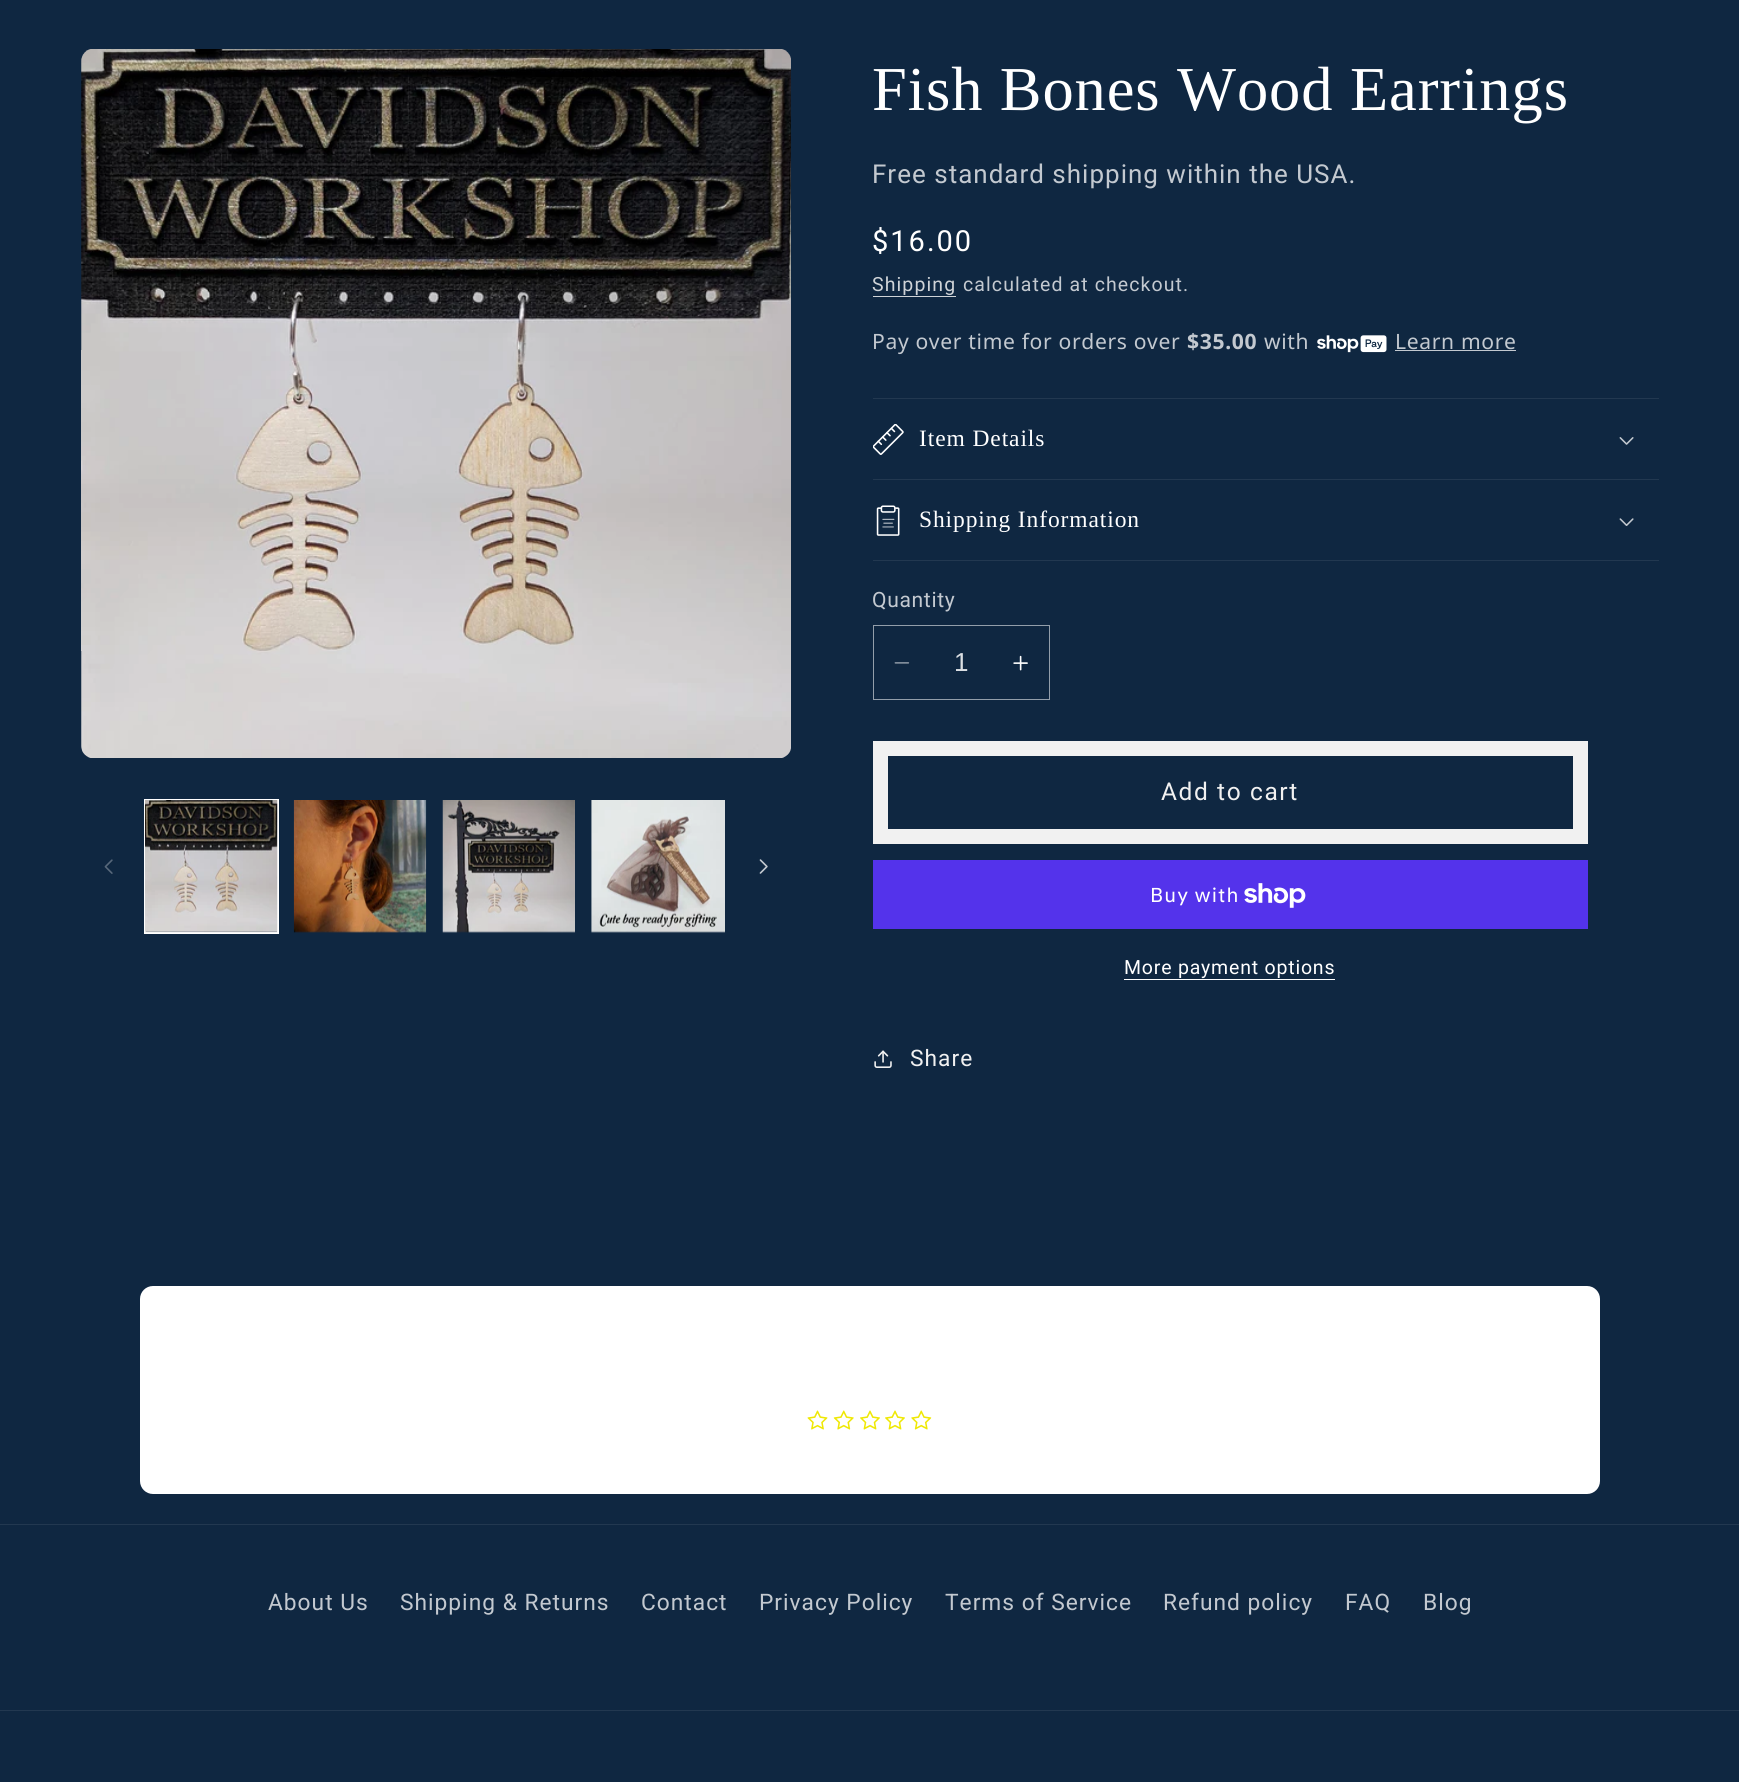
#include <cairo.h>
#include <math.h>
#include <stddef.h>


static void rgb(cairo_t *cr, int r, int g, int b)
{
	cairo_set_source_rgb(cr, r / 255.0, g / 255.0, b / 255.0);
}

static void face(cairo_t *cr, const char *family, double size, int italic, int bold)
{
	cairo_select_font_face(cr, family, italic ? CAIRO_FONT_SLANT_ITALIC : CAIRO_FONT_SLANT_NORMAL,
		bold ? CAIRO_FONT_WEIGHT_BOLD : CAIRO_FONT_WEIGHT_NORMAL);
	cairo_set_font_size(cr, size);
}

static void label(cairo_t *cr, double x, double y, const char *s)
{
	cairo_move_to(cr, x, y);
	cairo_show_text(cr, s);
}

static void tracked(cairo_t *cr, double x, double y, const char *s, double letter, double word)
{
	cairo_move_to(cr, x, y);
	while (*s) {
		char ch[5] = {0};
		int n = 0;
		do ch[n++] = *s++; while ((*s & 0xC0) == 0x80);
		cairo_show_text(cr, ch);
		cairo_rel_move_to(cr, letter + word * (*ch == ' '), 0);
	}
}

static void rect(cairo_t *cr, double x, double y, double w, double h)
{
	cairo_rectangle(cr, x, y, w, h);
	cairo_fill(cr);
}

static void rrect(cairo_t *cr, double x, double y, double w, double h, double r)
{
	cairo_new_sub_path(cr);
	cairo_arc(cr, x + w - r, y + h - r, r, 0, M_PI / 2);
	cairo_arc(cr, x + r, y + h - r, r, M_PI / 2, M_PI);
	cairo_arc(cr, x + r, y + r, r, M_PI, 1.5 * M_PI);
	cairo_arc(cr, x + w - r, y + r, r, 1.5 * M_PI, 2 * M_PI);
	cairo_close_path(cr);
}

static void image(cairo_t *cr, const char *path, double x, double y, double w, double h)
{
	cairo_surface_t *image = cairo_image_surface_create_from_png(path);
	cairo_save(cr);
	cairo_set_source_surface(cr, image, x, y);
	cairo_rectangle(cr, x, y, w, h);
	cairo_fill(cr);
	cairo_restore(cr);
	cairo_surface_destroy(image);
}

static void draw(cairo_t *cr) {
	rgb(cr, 15, 39, 65);
	cairo_paint(cr);
	image(cr, "image0.png", 81, 49, 710, 709);
	image(cr, "image1.png", 104, 859, 9, 15);
	cairo_rectangle(cr, 145, 800, 133, 133);
	rgb(cr, 255, 255, 255);
	cairo_stroke(cr);
	image(cr, "image2.png", 145, 800, 133, 133);
	image(cr, "image3.png", 293, 800, 134, 133);
	image(cr, "image4.png", 442, 800, 133, 133);
	image(cr, "image5.png", 591, 800, 134, 133);
	image(cr, "image6.png", 759, 859, 9, 15);
	face(cr, "Liberation Serif", 62.5, 0, 0);
	tracked(cr, 872, 110, "Fish Bones Wood Earrings", 0.9, 0);
	face(cr, "Roboto", 26, 0, 0);
	rgb(cr, 195, 201, 208);
	tracked(cr, 872, 183, "Free standard shipping within the USA.", 1, 0);
	face(cr, "Roboto", 29, 0, 0);
	rgb(cr, 255, 255, 255);
	tracked(cr, 872, 251, "$16.00", 2, 0);
	face(cr, "Roboto", 19.5, 0, 0);
	rgb(cr, 207, 211, 215);
	tracked(cr, 872, 291, "Shipping", 1.1, 0);
	rect(cr, 873, 296, 83, 1);
	rgb(cr, 195, 201, 208);
	tracked(cr, 963, 291, "calculated at checkout.", 1.1, 0);
	face(cr, "Noto Sans", 21.1, 0, 0);
	tracked(cr, 872, 349, "Pay over time for orders over", 0.65, 0);
	face(cr, "Noto Sans", 21.1, 0, 1);
	tracked(cr, 1187, 349, "$35.00", 0.65, 0);
	face(cr, "Noto Sans", 21.1, 0, 0);
	tracked(cr, 1264, 349, "with", 0.65, 0);
	image(cr, "image7.png", 1317, 335, 70, 18);
	tracked(cr, 1395, 349, "Learn more", 0.65, 0);
	rect(cr, 1395, 350, 121, 1);
	rgb(cr, 34, 56, 80);
	rect(cr, 873, 398, 786, 1);
	rect(cr, 873, 479, 786, 1);
	image(cr, "image8.png", 873, 424, 31, 31);
	face(cr, "Liberation Serif", 23.5, 0, 0);
	rgb(cr, 255, 255, 255);
	tracked(cr, 919, 446, "Item Details", 0.9, 0);
	image(cr, "image9.png", 1619, 437, 15, 8);
	rgb(cr, 34, 56, 80);
	rect(cr, 873, 560, 786, 1);
	image(cr, "image10.png", 876, 505, 24, 31);
	rgb(cr, 255, 255, 255);
	tracked(cr, 919, 527, "Shipping Information", 0.9, 0);
	image(cr, "image11.png", 1619, 518, 15, 8);
	face(cr, "Roboto", 21.1, 0, 0);
	rgb(cr, 195, 201, 208);
	tracked(cr, 872, 607, "Quantity", 0.65, 0);
	image(cr, "image12.png", 894, 662, 16, 2);
	image(cr, "image13.png", 1013, 655, 15, 16);
	cairo_rectangle(cr, 873.5, 625.5, 176, 74);
	rgb(cr, 147, 158, 170);
	cairo_set_line_width(cr, 1);
	cairo_stroke(cr);
	face(cr, "Liberation Sans", 26, 0, 0);
	rgb(cr, 219, 223, 227);
	label(cr, 954, 671, "1");
	cairo_rectangle(cr, 880.5, 748.5, 700, 88);
	rgb(cr, 241, 241, 241);
	cairo_set_line_width(cr, 15);
	cairo_stroke(cr);
	face(cr, "Roboto", 24.5, 0, 0);
	tracked(cr, 1161, 800, "Add to cart", 1.6, 0);
	rgb(cr, 84, 51, 235);
	rect(cr, 873, 860, 715, 69);
	face(cr, "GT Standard", 20, 0, 0);
	rgb(cr, 255, 255, 255);
	tracked(cr, 1150, 902, "Buy with", 1, 0);
	image(cr, "image14.png", 1244, 883, 62, 25);
	face(cr, "Roboto", 19.5, 0, 0);
	tracked(cr, 1124, 974, "More payment options", 0.8, 0);
	rect(cr, 1124, 979, 211, 1);
	image(cr, "image15.png", 874, 1050, 18, 18);
	face(cr, "Roboto", 22.75, 0, 0);
	rgb(cr, 241, 241, 241);
	tracked(cr, 910, 1066, "Share", 1, 0);
	rgb(cr, 255, 255, 255);
	rrect(cr, 140, 1286, 1460, 208, 13);
	cairo_fill(cr);
	image(cr, "image16.png", 807, 1410, 21, 20);
	image(cr, "image17.png", 833, 1410, 21, 20);
	image(cr, "image18.png", 860, 1410, 20, 20);
	image(cr, "image18.png", 885, 1410, 20, 20);
	image(cr, "image19.png", 911, 1410, 21, 20);
	rgb(cr, 34, 56, 80);
	rect(cr, 0, 1524, 1739, 1);
	rgb(cr, 195, 201, 208);
	tracked(cr, 268, 1610, "About Us", 1, 0);
	tracked(cr, 400, 1610, "Shipping & Returns", 1, 0);
	tracked(cr, 641, 1610, "Contact", 1, 0);
	tracked(cr, 759, 1610, "Privacy Policy", 1, 0);
	tracked(cr, 945, 1610, "Terms of Service", 1, 0);
	tracked(cr, 1163, 1610, "Refund policy", 1, 0);
	tracked(cr, 1345, 1610, "FAQ", 1, 0);
	tracked(cr, 1423, 1610, "Blog", 1, 0);
	rgb(cr, 34, 56, 80);
	rect(cr, 0, 1710, 1739, 1);
}

int main(void) {
	cairo_surface_t *surface = cairo_image_surface_create(CAIRO_FORMAT_RGB24, 1739, 1782);
	cairo_t *cr = cairo_create(surface);
	cairo_font_options_t *options = cairo_font_options_create();
	cairo_font_options_set_hint_metrics(options, CAIRO_HINT_METRICS_OFF);
	cairo_font_options_set_hint_style(options, CAIRO_HINT_STYLE_NONE);
	cairo_set_font_options(cr, options);
	cairo_set_miter_limit(cr, 4);
	draw(cr);
	cairo_surface_write_to_png(surface, "render.png");
	cairo_font_options_destroy(options);
	cairo_destroy(cr);
	cairo_surface_destroy(surface);
	return 0;
}
